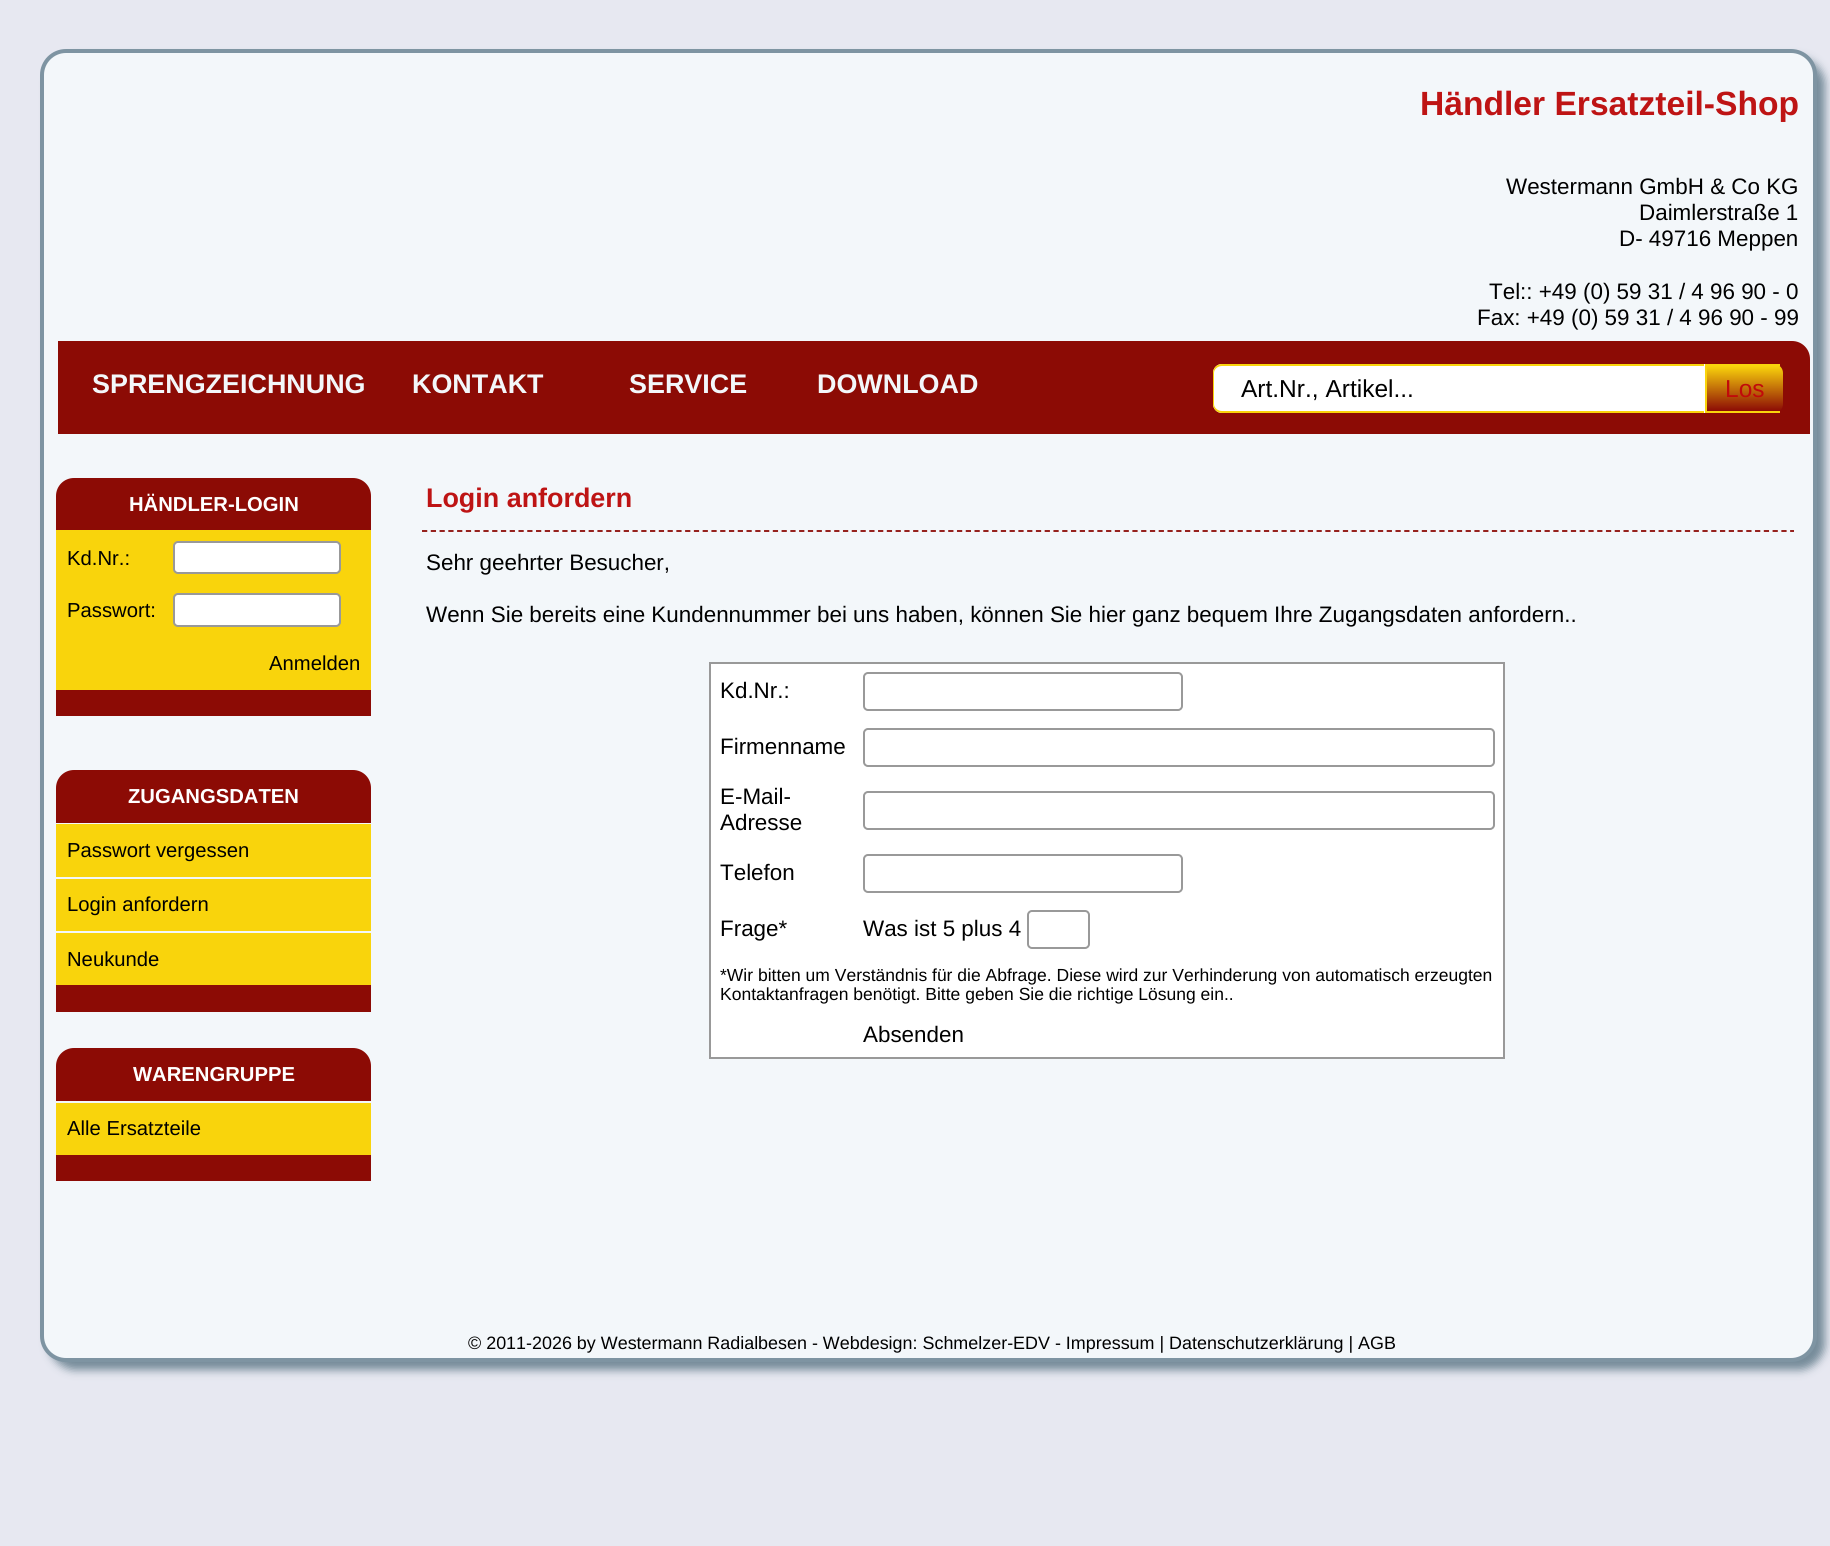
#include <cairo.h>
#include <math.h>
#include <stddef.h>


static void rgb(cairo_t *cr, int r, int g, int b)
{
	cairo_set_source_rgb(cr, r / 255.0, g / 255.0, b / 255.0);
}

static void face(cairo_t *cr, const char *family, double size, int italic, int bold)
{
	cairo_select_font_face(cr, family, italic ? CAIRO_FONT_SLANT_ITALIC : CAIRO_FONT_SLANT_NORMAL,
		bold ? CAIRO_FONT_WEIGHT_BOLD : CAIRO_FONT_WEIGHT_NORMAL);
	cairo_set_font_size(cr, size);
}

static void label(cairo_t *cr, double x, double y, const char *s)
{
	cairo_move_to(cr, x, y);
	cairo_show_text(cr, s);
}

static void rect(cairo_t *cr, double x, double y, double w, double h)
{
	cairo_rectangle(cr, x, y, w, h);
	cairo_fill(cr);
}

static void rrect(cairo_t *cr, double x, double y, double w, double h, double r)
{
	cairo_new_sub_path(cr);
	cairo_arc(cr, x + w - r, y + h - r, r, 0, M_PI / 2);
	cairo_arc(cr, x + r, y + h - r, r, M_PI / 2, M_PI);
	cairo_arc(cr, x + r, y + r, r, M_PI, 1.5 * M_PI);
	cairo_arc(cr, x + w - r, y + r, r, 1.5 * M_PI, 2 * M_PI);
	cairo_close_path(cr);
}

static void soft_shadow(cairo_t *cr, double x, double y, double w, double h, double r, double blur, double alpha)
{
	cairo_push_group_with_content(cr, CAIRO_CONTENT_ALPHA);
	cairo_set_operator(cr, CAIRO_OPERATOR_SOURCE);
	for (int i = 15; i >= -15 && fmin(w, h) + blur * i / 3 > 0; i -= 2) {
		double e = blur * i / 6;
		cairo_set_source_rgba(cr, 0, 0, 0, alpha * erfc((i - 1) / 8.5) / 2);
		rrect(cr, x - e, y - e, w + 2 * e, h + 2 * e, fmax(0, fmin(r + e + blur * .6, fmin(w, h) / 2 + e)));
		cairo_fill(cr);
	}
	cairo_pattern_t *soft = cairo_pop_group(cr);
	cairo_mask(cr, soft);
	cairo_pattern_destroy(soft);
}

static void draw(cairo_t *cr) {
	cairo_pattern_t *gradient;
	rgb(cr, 231, 232, 241);
	cairo_paint(cr);
	rgb(cr, 117, 139, 153);
	soft_shadow(cr, 49, 58, 1776, 1312, 26, 4.5, 1);
	rgb(cr, 243, 247, 250);
	rrect(cr, 42, 51, 1773, 1309, 24);
	cairo_fill_preserve(cr);
	rgb(cr, 126, 148, 162);
	cairo_set_line_width(cr, 4);
	cairo_stroke(cr);
	face(cr, "Liberation Sans", 33.6, 0, 1);
	rgb(cr, 190, 20, 20);
	label(cr, 1420, 115, "Händler Ersatzteil-Shop");
	face(cr, "Liberation Sans", 22.4, 0, 0);
	rgb(cr, 0, 0, 0);
	label(cr, 1506, 194, "Westermann GmbH & Co KG");
	label(cr, 1639, 220, "Daimlerstraße 1");
	label(cr, 1619, 246, "D- 49716 Meppen");
	label(cr, 1489, 299, "Tel:: +49 (0) 59 31 / 4 96 90 - 0");
	label(cr, 1477, 325, "Fax: +49 (0) 59 31 / 4 96 90 - 99");
	rgb(cr, 140, 11, 5);
	cairo_new_path(cr);
	cairo_move_to(cr, 58, 341);
	cairo_line_to(cr, 1792, 341);
	cairo_curve_to(cr, 1802, 341, 1810, 349, 1810, 359);
	cairo_line_to(cr, 1810, 434);
	cairo_line_to(cr, 58, 434);
	cairo_close_path(cr);
	cairo_fill(cr);
	face(cr, "Liberation Sans", 26.9, 0, 1);
	rgb(cr, 243, 247, 250);
	label(cr, 92, 393, "SPRENGZEICHNUNG");
	label(cr, 412, 393, "KONTAKT");
	label(cr, 629, 393, "SERVICE");
	label(cr, 817, 393, "DOWNLOAD");
	rgb(cr, 255, 255, 255);
	cairo_new_path(cr);
	cairo_move_to(cr, 1222, 364);
	cairo_line_to(cr, 1705, 364);
	cairo_line_to(cr, 1705, 413);
	cairo_line_to(cr, 1222, 413);
	cairo_curve_to(cr, 1217, 413, 1213, 409, 1213, 404);
	cairo_line_to(cr, 1213, 373);
	cairo_curve_to(cr, 1213, 368, 1217, 364, 1222, 364);
	cairo_close_path(cr);
	cairo_fill(cr);
	rgb(cr, 249, 212, 12);
	cairo_set_fill_rule(cr, CAIRO_FILL_RULE_EVEN_ODD);
	cairo_new_path(cr);
	cairo_move_to(cr, 1222, 364);
	cairo_line_to(cr, 1704, 364);
	cairo_line_to(cr, 1704, 413);
	cairo_line_to(cr, 1222, 413);
	cairo_curve_to(cr, 1217, 413, 1213, 409, 1213, 404);
	cairo_line_to(cr, 1213, 373);
	cairo_curve_to(cr, 1213, 368, 1217, 364, 1222, 364);
	cairo_close_path(cr);
	cairo_move_to(cr, 1222, 366);
	cairo_line_to(cr, 1704, 366);
	cairo_line_to(cr, 1704, 411);
	cairo_line_to(cr, 1222, 411);
	cairo_curve_to(cr, 1218, 411, 1214, 408, 1214, 404);
	cairo_line_to(cr, 1214, 373);
	cairo_curve_to(cr, 1214, 369, 1218, 366, 1222, 366);
	cairo_close_path(cr);
	cairo_fill(cr);
	face(cr, "Liberation Sans", 24.5, 0, 0);
	rgb(cr, 0, 0, 0);
	label(cr, 1241, 397, "Art.Nr., Artikel...");
	cairo_save(cr);
	cairo_set_fill_rule(cr, CAIRO_FILL_RULE_WINDING);
	cairo_new_path(cr);
	cairo_move_to(cr, 1705, 364);
	cairo_line_to(cr, 1774, 364);
	cairo_curve_to(cr, 1779, 364, 1783, 368, 1783, 373);
	cairo_line_to(cr, 1783, 404);
	cairo_curve_to(cr, 1783, 409, 1779, 413, 1774, 413);
	cairo_line_to(cr, 1705, 413);
	cairo_close_path(cr);
	cairo_clip(cr);
	gradient = cairo_pattern_create_linear(1706, 366, 1706, 411);
	cairo_pattern_add_color_stop_rgba(gradient, 0, 0.976, 0.831, 0.047, 1);
	cairo_pattern_add_color_stop_rgba(gradient, 1, 0.549, 0.043, 0.02, 1);
	cairo_set_source(cr, gradient);
	cairo_pattern_destroy(gradient);
	rect(cr, 1707, 366, 76, 45);
	cairo_restore(cr);
	rgb(cr, 249, 212, 12);
	rect(cr, 1705, 364, 75, 2);
	rect(cr, 1705, 411, 75, 2);
	rect(cr, 1705, 364, 2, 49);
	rgb(cr, 193, 10, 10);
	label(cr, 1725, 397, "Los");
	rgb(cr, 140, 11, 5);
	cairo_new_path(cr);
	cairo_move_to(cr, 74, 478);
	cairo_line_to(cr, 353, 478);
	cairo_curve_to(cr, 363, 478, 371, 486, 371, 496);
	cairo_line_to(cr, 371, 530);
	cairo_line_to(cr, 56, 530);
	cairo_line_to(cr, 56, 496);
	cairo_curve_to(cr, 56, 486, 64, 478, 74, 478);
	cairo_close_path(cr);
	cairo_fill(cr);
	face(cr, "Liberation Sans", 20.25, 0, 1);
	rgb(cr, 255, 255, 255);
	label(cr, 129, 511, "HÄNDLER-LOGIN");
	rgb(cr, 249, 212, 12);
	rect(cr, 56, 530, 315, 160);
	face(cr, "Liberation Sans", 20.25, 0, 0);
	rgb(cr, 0, 0, 0);
	label(cr, 67, 565, "Kd.Nr.:");
	rgb(cr, 255, 255, 255);
	rrect(cr, 174, 542, 166, 31, 4);
	cairo_fill_preserve(cr);
	rgb(cr, 153, 153, 153);
	cairo_set_line_width(cr, 2);
	cairo_stroke(cr);
	rgb(cr, 0, 0, 0);
	label(cr, 67, 617, "Passwort:");
	rgb(cr, 255, 255, 255);
	rrect(cr, 174, 594, 166, 32, 4);
	cairo_fill_preserve(cr);
	rgb(cr, 153, 153, 153);
	cairo_stroke(cr);
	rgb(cr, 0, 0, 0);
	label(cr, 269, 670, "Anmelden");
	rgb(cr, 140, 11, 5);
	rect(cr, 56, 690, 315, 26);
	cairo_new_path(cr);
	cairo_move_to(cr, 74, 770);
	cairo_line_to(cr, 353, 770);
	cairo_curve_to(cr, 363, 770, 371, 778, 371, 788);
	cairo_line_to(cr, 371, 823);
	cairo_line_to(cr, 56, 823);
	cairo_line_to(cr, 56, 788);
	cairo_curve_to(cr, 56, 778, 64, 770, 74, 770);
	cairo_close_path(cr);
	cairo_fill(cr);
	face(cr, "Liberation Sans", 20.25, 0, 1);
	rgb(cr, 255, 255, 255);
	label(cr, 128, 803, "ZUGANGSDATEN");
	rgb(cr, 249, 212, 12);
	rect(cr, 56, 824, 315, 53);
	face(cr, "Liberation Sans", 20.25, 0, 0);
	rgb(cr, 0, 0, 0);
	label(cr, 67, 857, "Passwort vergessen");
	rgb(cr, 249, 212, 12);
	rect(cr, 56, 879, 315, 52);
	rgb(cr, 0, 0, 0);
	label(cr, 67, 911, "Login anfordern");
	rgb(cr, 249, 212, 12);
	rect(cr, 56, 933, 315, 52);
	rgb(cr, 0, 0, 0);
	label(cr, 67, 966, "Neukunde");
	rgb(cr, 140, 11, 5);
	rect(cr, 56, 985, 315, 27);
	cairo_new_path(cr);
	cairo_move_to(cr, 74, 1048);
	cairo_line_to(cr, 353, 1048);
	cairo_curve_to(cr, 363, 1048, 371, 1056, 371, 1066);
	cairo_line_to(cr, 371, 1101);
	cairo_line_to(cr, 56, 1101);
	cairo_line_to(cr, 56, 1066);
	cairo_curve_to(cr, 56, 1056, 64, 1048, 74, 1048);
	cairo_close_path(cr);
	cairo_fill(cr);
	face(cr, "Liberation Sans", 20.25, 0, 1);
	rgb(cr, 255, 255, 255);
	label(cr, 133, 1081, "WARENGRUPPE");
	rgb(cr, 249, 212, 12);
	rect(cr, 56, 1103, 315, 52);
	face(cr, "Liberation Sans", 20.25, 0, 0);
	rgb(cr, 0, 0, 0);
	label(cr, 67, 1135, "Alle Ersatzteile");
	rgb(cr, 140, 11, 5);
	rect(cr, 56, 1155, 315, 26);
	face(cr, "Liberation Sans", 26.9, 0, 1);
	rgb(cr, 190, 20, 20);
	label(cr, 426, 507, "Login anfordern");
	cairo_new_path(cr);
	cairo_move_to(cr, 422, 531);
	cairo_line_to(cr, 1794, 531);
	rgb(cr, 140, 11, 5);
	cairo_set_line_width(cr, 1.8);
	cairo_set_dash(cr, (double[]){5.25, 3.52}, 2, 0);
	cairo_stroke(cr);
	face(cr, "Liberation Sans", 22.4, 0, 0);
	rgb(cr, 0, 0, 0);
	label(cr, 426, 570, "Sehr geehrter Besucher,");
	label(cr, 426, 622, "Wenn Sie bereits eine Kundennummer bei uns haben, können Sie hier ganz bequem Ihre Zugangsdaten anfordern..");
	rgb(cr, 255, 255, 255);
	rect(cr, 711, 664, 792, 393);
	rgb(cr, 153, 153, 153);
	rect(cr, 709, 662, 796, 2);
	rect(cr, 1503, 662, 2, 397);
	rect(cr, 709, 1057, 796, 2);
	rect(cr, 709, 662, 2, 397);
	rgb(cr, 0, 0, 0);
	label(cr, 720, 698, "Kd.Nr.:");
	rrect(cr, 864, 673, 318, 37, 4);
	rgb(cr, 153, 153, 153);
	cairo_set_line_width(cr, 2);
	cairo_set_dash(cr, NULL, 0, 0);
	cairo_stroke(cr);
	rgb(cr, 0, 0, 0);
	label(cr, 720, 754, "Firmenname");
	rrect(cr, 864, 729, 630, 37, 4);
	rgb(cr, 153, 153, 153);
	cairo_stroke(cr);
	rgb(cr, 0, 0, 0);
	label(cr, 720, 804, "E-Mail-");
	label(cr, 720, 830, "Adresse");
	rrect(cr, 864, 792, 630, 37, 4);
	rgb(cr, 153, 153, 153);
	cairo_stroke(cr);
	rgb(cr, 0, 0, 0);
	label(cr, 720, 880, "Telefon");
	rrect(cr, 864, 855, 318, 37, 4);
	rgb(cr, 153, 153, 153);
	cairo_stroke(cr);
	rgb(cr, 0, 0, 0);
	label(cr, 720, 936, "Frage*");
	label(cr, 863, 936, "Was ist 5 plus 4");
	rrect(cr, 1028, 911, 61, 37, 4);
	rgb(cr, 153, 153, 153);
	cairo_stroke(cr);
	face(cr, "Liberation Sans", 17.5, 0, 0);
	rgb(cr, 0, 0, 0);
	label(cr, 720, 981, "*Wir bitten um Verständnis für die Abfrage. Diese wird zur Verhinderung von automatisch erzeugten");
	label(cr, 720, 1000, "Kontaktanfragen benötigt. Bitte geben Sie die richtige Lösung ein..");
	face(cr, "Liberation Sans", 22.4, 0, 0);
	label(cr, 863, 1042, "Absenden");
	face(cr, "Liberation Sans", 17.92, 0, 0);
	label(cr, 468, 1349, "© 2011-2026 by Westermann Radialbesen - Webdesign: Schmelzer-EDV - Impressum | Datenschutzerklärung | AGB");
}

int main(void) {
	cairo_surface_t *surface = cairo_image_surface_create(CAIRO_FORMAT_RGB24, 1830, 1546);
	cairo_t *cr = cairo_create(surface);
	cairo_font_options_t *options = cairo_font_options_create();
	cairo_font_options_set_hint_metrics(options, CAIRO_HINT_METRICS_OFF);
	cairo_font_options_set_hint_style(options, CAIRO_HINT_STYLE_NONE);
	cairo_set_font_options(cr, options);
	cairo_set_miter_limit(cr, 4);
	draw(cr);
	cairo_surface_write_to_png(surface, "render.png");
	cairo_font_options_destroy(options);
	cairo_destroy(cr);
	cairo_surface_destroy(surface);
	return 0;
}
